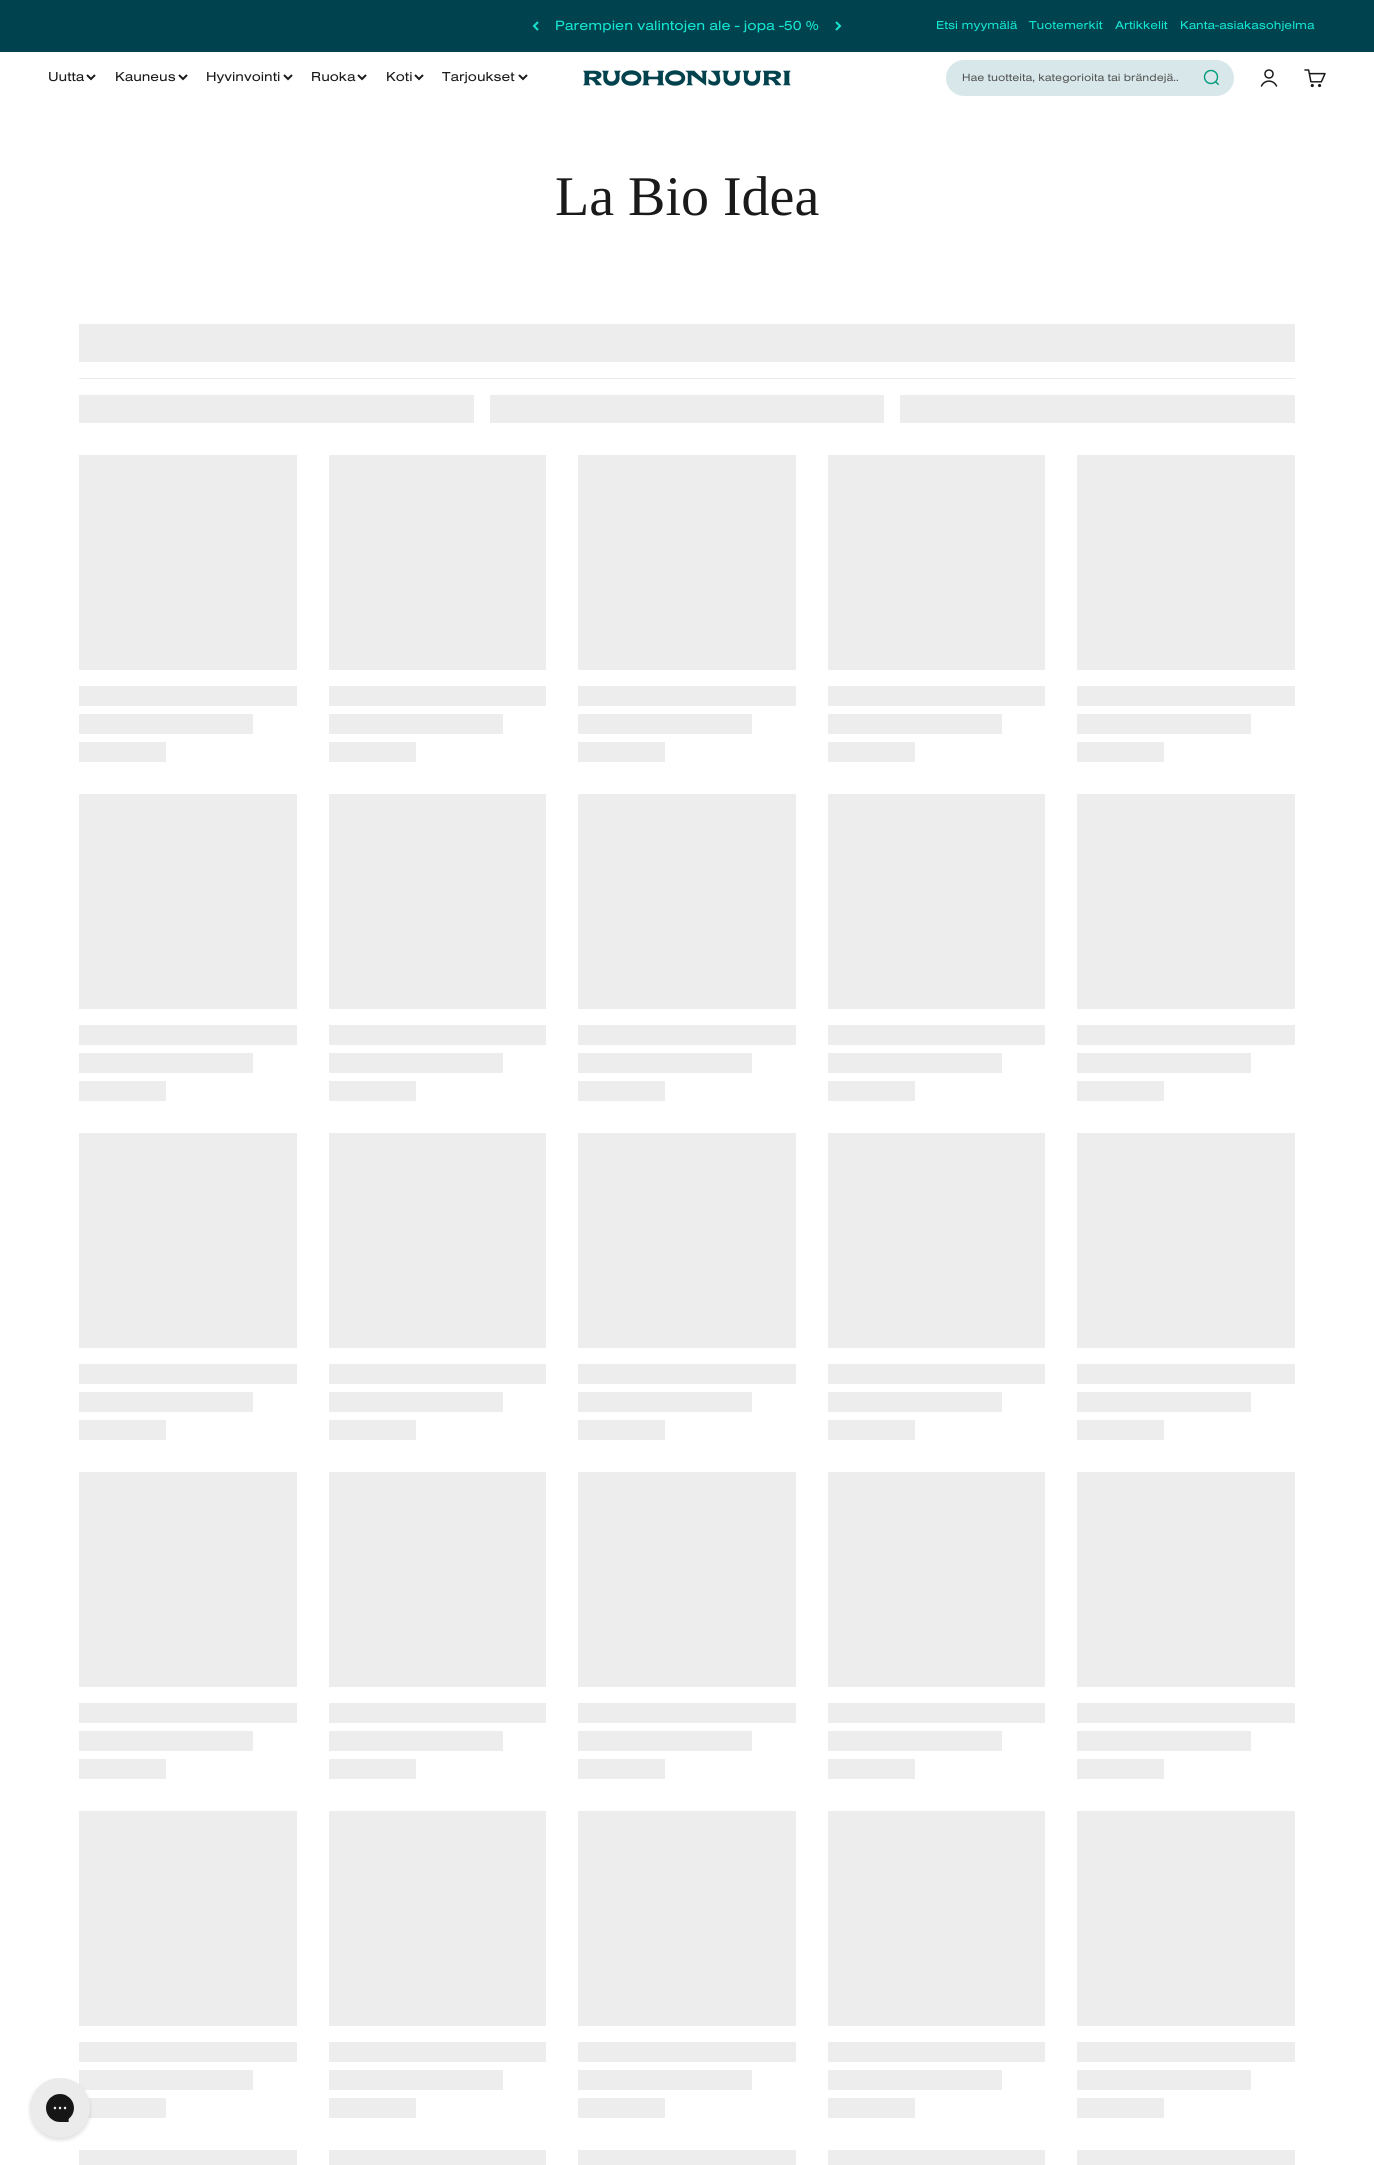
#include <cairo.h>
#include <math.h>
#include <stddef.h>


static void rgb(cairo_t *cr, int r, int g, int b)
{
	cairo_set_source_rgb(cr, r / 255.0, g / 255.0, b / 255.0);
}

static void face(cairo_t *cr, const char *family, double size, int italic, int bold)
{
	cairo_select_font_face(cr, family, italic ? CAIRO_FONT_SLANT_ITALIC : CAIRO_FONT_SLANT_NORMAL,
		bold ? CAIRO_FONT_WEIGHT_BOLD : CAIRO_FONT_WEIGHT_NORMAL);
	cairo_set_font_size(cr, size);
}

static void label(cairo_t *cr, double x, double y, const char *s)
{
	cairo_move_to(cr, x, y);
	cairo_show_text(cr, s);
}

static void rect(cairo_t *cr, double x, double y, double w, double h)
{
	cairo_rectangle(cr, x, y, w, h);
	cairo_fill(cr);
}

static void rrect(cairo_t *cr, double x, double y, double w, double h, double r)
{
	cairo_new_sub_path(cr);
	cairo_arc(cr, x + w - r, y + h - r, r, 0, M_PI / 2);
	cairo_arc(cr, x + r, y + h - r, r, M_PI / 2, M_PI);
	cairo_arc(cr, x + r, y + r, r, M_PI, 1.5 * M_PI);
	cairo_arc(cr, x + w - r, y + r, r, 1.5 * M_PI, 2 * M_PI);
	cairo_close_path(cr);
}

static void image(cairo_t *cr, const char *path, double x, double y, double w, double h)
{
	cairo_surface_t *image = cairo_image_surface_create_from_png(path);
	cairo_save(cr);
	cairo_set_source_surface(cr, image, x, y);
	cairo_rectangle(cr, x, y, w, h);
	cairo_fill(cr);
	cairo_restore(cr);
	cairo_surface_destroy(image);
}

static void draw(cairo_t *cr) {
	rgb(cr, 255, 255, 255);
	cairo_paint(cr);
	rgb(cr, 0, 66, 78);
	rect(cr, 0, 0, 1374, 52);
	cairo_new_path(cr);
	cairo_move_to(cr, 538, 22);
	cairo_line_to(cr, 534, 26);
	cairo_line_to(cr, 538, 30);
	rgb(cr, 20, 229, 208);
	cairo_stroke(cr);
	face(cr, "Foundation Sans", 14, 0, 0);
	label(cr, 555, 30, "Parempien valintojen ale - jopa -50 %");
	cairo_new_path(cr);
	cairo_move_to(cr, 836, 30);
	cairo_line_to(cr, 840, 26);
	cairo_line_to(cr, 836, 22);
	cairo_stroke(cr);
	face(cr, "Foundation Sans", 12, 0, 0);
	label(cr, 936, 29, "Etsi myymälä");
	label(cr, 1029, 29, "Tuotemerkit");
	label(cr, 1115, 29, "Artikkelit");
	label(cr, 1180, 29, "Kanta-asiakasohjelma");
	face(cr, "Foundation Sans", 13.5, 0, 0);
	rgb(cr, 26, 26, 26);
	label(cr, 48, 81, "Uutta");
	cairo_new_path(cr);
	cairo_move_to(cr, 87, 75);
	cairo_line_to(cr, 91, 79);
	cairo_line_to(cr, 95, 75);
	cairo_stroke(cr);
	label(cr, 115, 81, "Kauneus");
	cairo_new_path(cr);
	cairo_move_to(cr, 179, 75);
	cairo_line_to(cr, 183, 79);
	cairo_line_to(cr, 187, 75);
	cairo_stroke(cr);
	label(cr, 206, 81, "Hyvinvointi");
	cairo_new_path(cr);
	cairo_move_to(cr, 284, 75);
	cairo_line_to(cr, 288, 79);
	cairo_line_to(cr, 292, 75);
	cairo_stroke(cr);
	label(cr, 311, 81, "Ruoka");
	cairo_new_path(cr);
	cairo_move_to(cr, 358, 75);
	cairo_line_to(cr, 362, 79);
	cairo_line_to(cr, 366, 75);
	cairo_stroke(cr);
	label(cr, 386, 81, "Koti");
	cairo_new_path(cr);
	cairo_move_to(cr, 415, 75);
	cairo_line_to(cr, 419, 79);
	cairo_line_to(cr, 423, 75);
	cairo_stroke(cr);
	label(cr, 442, 81, "Tarjoukset");
	cairo_new_path(cr);
	cairo_move_to(cr, 519, 75);
	cairo_line_to(cr, 523, 79);
	cairo_line_to(cr, 527, 75);
	cairo_stroke(cr);
	image(cr, "image0.png", 583, 70, 208, 16);
	rgb(cr, 216, 232, 234);
	rrect(cr, 946, 60, 288, 36, 18);
	cairo_fill(cr);
	face(cr, "Foundation Sans", 10.9, 0, 0);
	rgb(cr, 85, 85, 85);
	label(cr, 962, 81, "Hae tuotteita, kategorioita tai brändejä..");
	image(cr, "image1.png", 1203, 69, 16, 16);
	cairo_arc(cr, 1269, 74, 4, 0, 2 * M_PI);
	rgb(cr, 26, 26, 26);
	cairo_set_line_width(cr, 1.5);
	cairo_stroke(cr);
	cairo_new_path(cr);
	cairo_move_to(cr, 1261.5, 86);
	cairo_curve_to(cr, 1264.5, 79.5, 1273.5, 79.5, 1276.5, 86);
	cairo_set_line_cap(cr, CAIRO_LINE_CAP_ROUND);
	cairo_stroke(cr);
	image(cr, "image2.png", 1304, 69, 22, 19);
	face(cr, "Liberation Serif", 56, 0, 0);
	label(cr, 555, 215, "La Bio Idea");
	rgb(cr, 237, 237, 237);
	rect(cr, 79, 324, 1216, 38);
	rgb(cr, 235, 235, 235);
	rect(cr, 79, 378, 1216, 1);
	rgb(cr, 237, 237, 237);
	rect(cr, 79, 395, 395, 28);
	rect(cr, 490, 395, 394, 28);
	rect(cr, 900, 395, 395, 28);
	rect(cr, 79, 455, 218, 215);
	rect(cr, 79, 686, 218, 20);
	rect(cr, 79, 714, 174, 20);
	rect(cr, 79, 742, 87, 20);
	rect(cr, 329, 455, 217, 215);
	rect(cr, 329, 686, 217, 20);
	rect(cr, 329, 714, 174, 20);
	rect(cr, 329, 742, 87, 20);
	rect(cr, 578, 455, 218, 215);
	rect(cr, 578, 686, 218, 20);
	rect(cr, 578, 714, 174, 20);
	rect(cr, 578, 742, 87, 20);
	rect(cr, 828, 455, 217, 215);
	rect(cr, 828, 686, 217, 20);
	rect(cr, 828, 714, 174, 20);
	rect(cr, 828, 742, 87, 20);
	rect(cr, 1077, 455, 218, 215);
	rect(cr, 1077, 686, 218, 20);
	rect(cr, 1077, 714, 174, 20);
	rect(cr, 1077, 742, 87, 20);
	rect(cr, 79, 794, 218, 215);
	rect(cr, 79, 1025, 218, 20);
	rect(cr, 79, 1053, 174, 20);
	rect(cr, 79, 1081, 87, 20);
	rect(cr, 329, 794, 217, 215);
	rect(cr, 329, 1025, 217, 20);
	rect(cr, 329, 1053, 174, 20);
	rect(cr, 329, 1081, 87, 20);
	rect(cr, 578, 794, 218, 215);
	rect(cr, 578, 1025, 218, 20);
	rect(cr, 578, 1053, 174, 20);
	rect(cr, 578, 1081, 87, 20);
	rect(cr, 828, 794, 217, 215);
	rect(cr, 828, 1025, 217, 20);
	rect(cr, 828, 1053, 174, 20);
	rect(cr, 828, 1081, 87, 20);
	rect(cr, 1077, 794, 218, 215);
	rect(cr, 1077, 1025, 218, 20);
	rect(cr, 1077, 1053, 174, 20);
	rect(cr, 1077, 1081, 87, 20);
	rect(cr, 79, 1133, 218, 215);
	rect(cr, 79, 1364, 218, 20);
	rect(cr, 79, 1392, 174, 20);
	rect(cr, 79, 1420, 87, 20);
	rect(cr, 329, 1133, 217, 215);
	rect(cr, 329, 1364, 217, 20);
	rect(cr, 329, 1392, 174, 20);
	rect(cr, 329, 1420, 87, 20);
	rect(cr, 578, 1133, 218, 215);
	rect(cr, 578, 1364, 218, 20);
	rect(cr, 578, 1392, 174, 20);
	rect(cr, 578, 1420, 87, 20);
	rect(cr, 828, 1133, 217, 215);
	rect(cr, 828, 1364, 217, 20);
	rect(cr, 828, 1392, 174, 20);
	rect(cr, 828, 1420, 87, 20);
	rect(cr, 1077, 1133, 218, 215);
	rect(cr, 1077, 1364, 218, 20);
	rect(cr, 1077, 1392, 174, 20);
	rect(cr, 1077, 1420, 87, 20);
	rect(cr, 79, 1472, 218, 215);
	rect(cr, 79, 1703, 218, 20);
	rect(cr, 79, 1731, 174, 20);
	rect(cr, 79, 1759, 87, 20);
	rect(cr, 329, 1472, 217, 215);
	rect(cr, 329, 1703, 217, 20);
	rect(cr, 329, 1731, 174, 20);
	rect(cr, 329, 1759, 87, 20);
	rect(cr, 578, 1472, 218, 215);
	rect(cr, 578, 1703, 218, 20);
	rect(cr, 578, 1731, 174, 20);
	rect(cr, 578, 1759, 87, 20);
	rect(cr, 828, 1472, 217, 215);
	rect(cr, 828, 1703, 217, 20);
	rect(cr, 828, 1731, 174, 20);
	rect(cr, 828, 1759, 87, 20);
	rect(cr, 1077, 1472, 218, 215);
	rect(cr, 1077, 1703, 218, 20);
	rect(cr, 1077, 1731, 174, 20);
	rect(cr, 1077, 1759, 87, 20);
	rect(cr, 79, 1811, 218, 215);
	rect(cr, 79, 2042, 218, 20);
	rect(cr, 79, 2070, 174, 20);
	rect(cr, 88, 2098, 78, 20);
	rect(cr, 329, 1811, 217, 215);
	rect(cr, 329, 2042, 217, 20);
	rect(cr, 329, 2070, 174, 20);
	rect(cr, 329, 2098, 87, 20);
	rect(cr, 578, 1811, 218, 215);
	rect(cr, 578, 2042, 218, 20);
	rect(cr, 578, 2070, 174, 20);
	rect(cr, 578, 2098, 87, 20);
	rect(cr, 828, 1811, 217, 215);
	rect(cr, 828, 2042, 217, 20);
	rect(cr, 828, 2070, 174, 20);
	rect(cr, 828, 2098, 87, 20);
	rect(cr, 1077, 1811, 218, 215);
	rect(cr, 1077, 2042, 218, 20);
	rect(cr, 1077, 2070, 174, 20);
	rect(cr, 1077, 2098, 87, 20);
	rect(cr, 79, 2150, 218, 15);
	rect(cr, 329, 2150, 217, 15);
	rect(cr, 578, 2150, 218, 15);
	rect(cr, 828, 2150, 217, 15);
	rect(cr, 1077, 2150, 218, 15);
	image(cr, "image3.png", 28, 2078, 64, 64);
}

int main(void) {
	cairo_surface_t *surface = cairo_image_surface_create(CAIRO_FORMAT_RGB24, 1374, 2165);
	cairo_t *cr = cairo_create(surface);
	cairo_font_options_t *options = cairo_font_options_create();
	cairo_font_options_set_hint_metrics(options, CAIRO_HINT_METRICS_OFF);
	cairo_font_options_set_hint_style(options, CAIRO_HINT_STYLE_NONE);
	cairo_set_font_options(cr, options);
	cairo_set_miter_limit(cr, 4);
	draw(cr);
	cairo_surface_write_to_png(surface, "render.png");
	cairo_font_options_destroy(options);
	cairo_destroy(cr);
	cairo_surface_destroy(surface);
	return 0;
}
